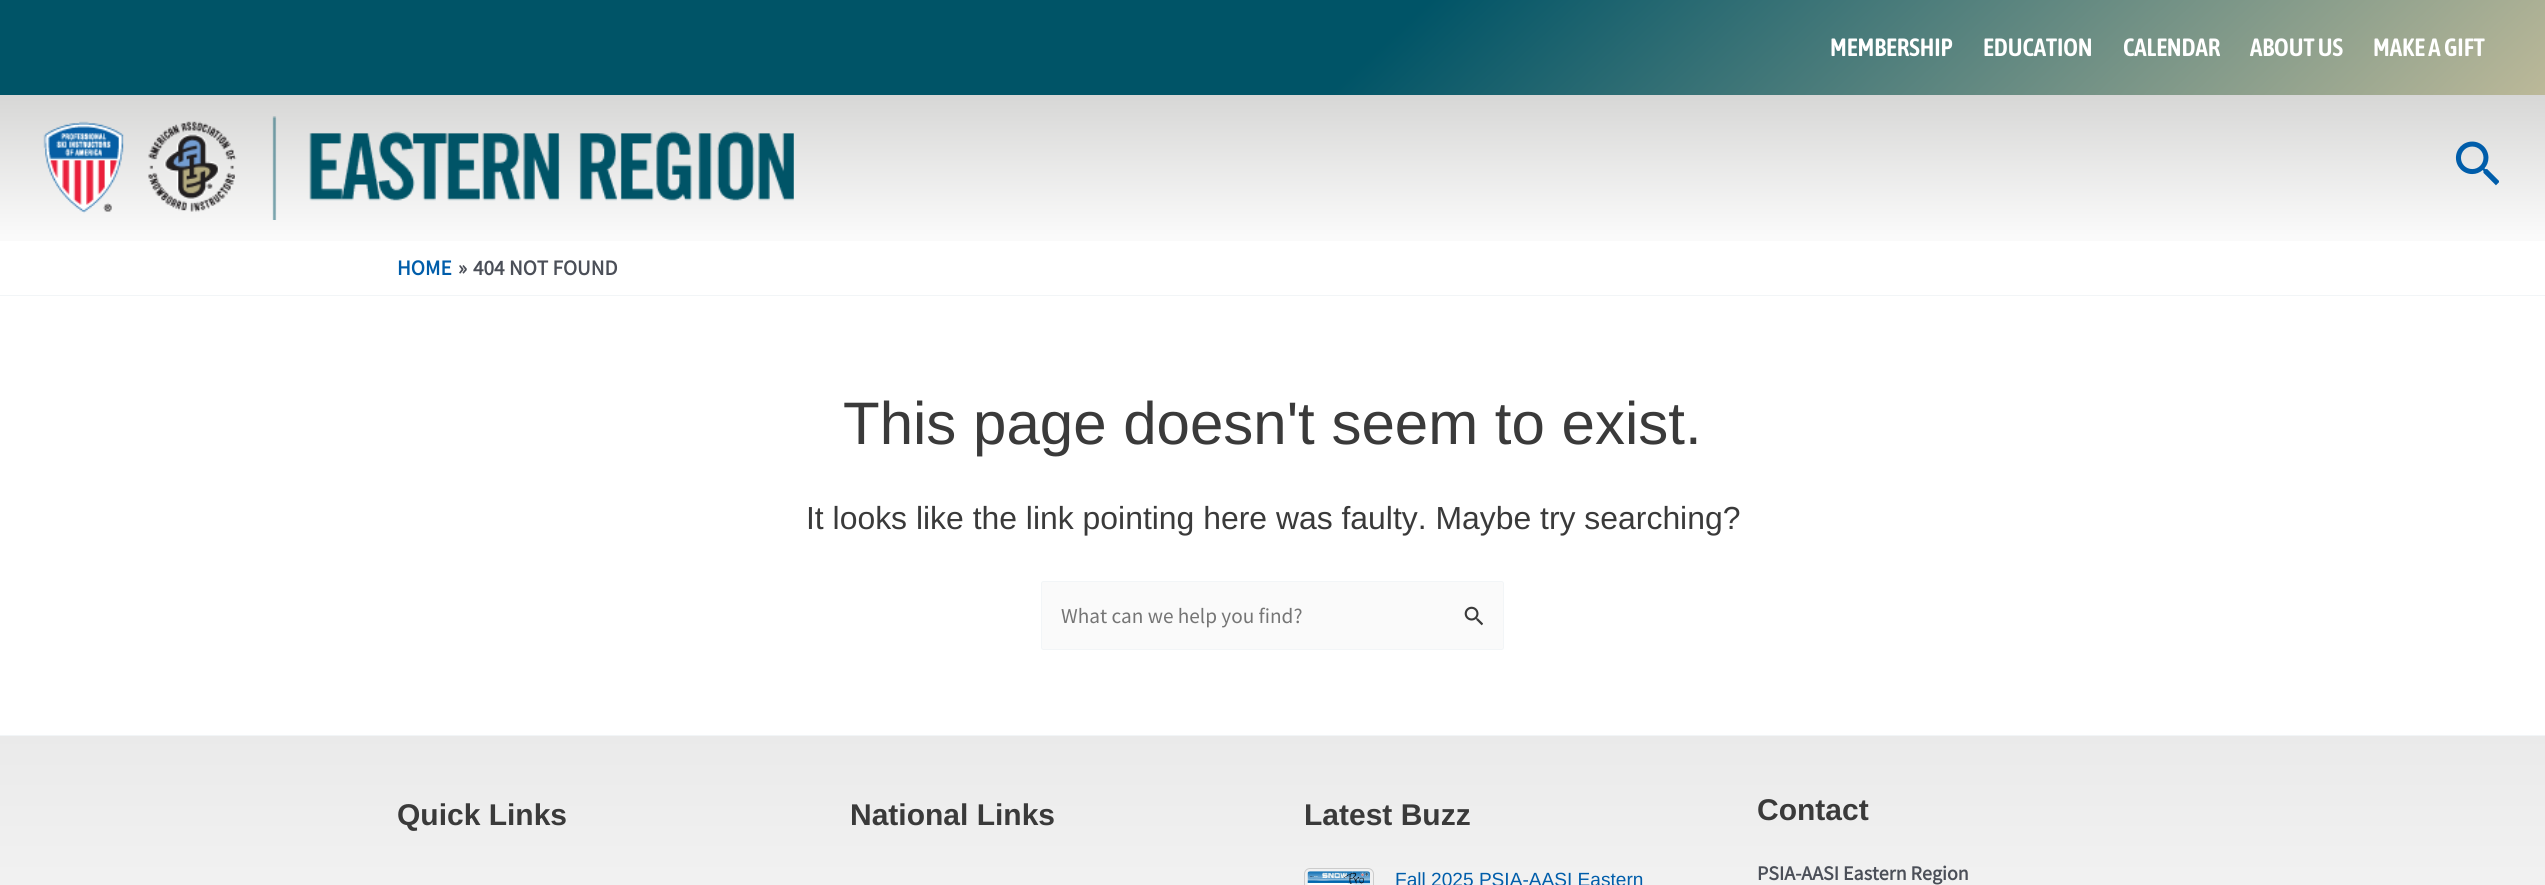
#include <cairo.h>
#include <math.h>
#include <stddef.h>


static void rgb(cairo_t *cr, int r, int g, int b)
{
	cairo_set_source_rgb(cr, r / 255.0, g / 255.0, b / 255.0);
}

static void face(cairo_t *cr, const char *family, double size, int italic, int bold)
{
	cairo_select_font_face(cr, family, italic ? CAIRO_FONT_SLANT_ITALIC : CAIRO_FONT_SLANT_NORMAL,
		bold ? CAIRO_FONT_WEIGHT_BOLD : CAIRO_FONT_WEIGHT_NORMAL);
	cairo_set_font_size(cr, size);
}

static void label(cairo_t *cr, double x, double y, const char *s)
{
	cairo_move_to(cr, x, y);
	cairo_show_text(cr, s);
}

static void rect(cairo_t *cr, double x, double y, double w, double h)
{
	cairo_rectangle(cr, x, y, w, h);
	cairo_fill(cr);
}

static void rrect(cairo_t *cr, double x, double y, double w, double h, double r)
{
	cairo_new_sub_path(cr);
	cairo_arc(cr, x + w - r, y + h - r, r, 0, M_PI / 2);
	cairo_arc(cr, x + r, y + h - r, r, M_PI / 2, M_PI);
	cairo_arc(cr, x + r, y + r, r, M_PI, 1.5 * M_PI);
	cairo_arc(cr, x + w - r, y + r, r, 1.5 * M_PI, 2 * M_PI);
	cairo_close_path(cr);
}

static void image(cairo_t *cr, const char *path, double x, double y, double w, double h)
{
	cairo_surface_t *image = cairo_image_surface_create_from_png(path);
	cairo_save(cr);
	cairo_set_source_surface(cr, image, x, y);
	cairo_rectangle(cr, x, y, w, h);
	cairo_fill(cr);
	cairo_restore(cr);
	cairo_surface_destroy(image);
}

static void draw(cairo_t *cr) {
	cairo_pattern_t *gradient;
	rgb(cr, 255, 255, 255);
	cairo_paint(cr);
	gradient = cairo_pattern_create_linear(657, -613, 1888, 708);
	cairo_pattern_add_color_stop_rgba(gradient, 0.54, 0, 0.329, 0.404, 1);
	cairo_pattern_add_color_stop_rgba(gradient, 1, 0.737, 0.725, 0.6, 1);
	cairo_set_source(cr, gradient);
	cairo_pattern_destroy(gradient);
	rect(cr, 0, 0, 2545, 95);
	face(cr, "Asap Condensed SemiBold", 25, 0, 0);
	rgb(cr, 255, 255, 255);
	label(cr, 1830, 56, "MEMBERSHIP");
	label(cr, 1983, 56, "EDUCATION");
	label(cr, 2123, 56, "CALENDAR");
	label(cr, 2250, 56, "ABOUT US");
	label(cr, 2373, 56, "MAKE A GIFT");
	gradient = cairo_pattern_create_linear(1273, 95, 1273, 241);
	cairo_pattern_add_color_stop_rgba(gradient, 0, 0.843, 0.843, 0.839, 1);
	cairo_pattern_add_color_stop_rgba(gradient, 0.96, 0.98, 0.98, 0.98, 1);
	cairo_set_source(cr, gradient);
	cairo_pattern_destroy(gradient);
	rect(cr, 0, 95, 2545, 146);
	image(cr, "image0.png", 43, 116, 751, 104);
	image(cr, "image1.png", 2455, 141, 44, 45);
	rgb(cr, 242, 245, 247);
	rect(cr, 0, 295, 2545, 1);
	face(cr, "Source Sans Pro", 21.25, 0, 1);
	rgb(cr, 0, 93, 170);
	label(cr, 397, 275, "HOME");
	rgb(cr, 75, 79, 88);
	label(cr, 458, 275, "»");
	label(cr, 473, 275, "404 NOT FOUND");
	face(cr, "Liberation Sans", 60, 0, 0);
	rgb(cr, 58, 58, 58);
	label(cr, 843, 444, "This page doesn't seem to exist.");
	face(cr, "Liberation Sans", 31.9, 0, 0);
	label(cr, 806, 529, "It looks like the link pointing here was faulty. Maybe try searching?");
	rgb(cr, 250, 250, 250);
	rrect(cr, 1041.5, 581.5, 462, 68, 2);
	cairo_fill_preserve(cr);
	rgb(cr, 242, 245, 247);
	cairo_set_line_width(cr, 1);
	cairo_stroke(cr);
	face(cr, "Source Sans Pro", 21.25, 0, 0);
	rgb(cr, 117, 117, 117);
	label(cr, 1061, 623, "What can we help you find?");
	image(cr, "image2.png", 1464, 606, 19, 20);
	gradient = cairo_pattern_create_linear(1273, 736, 1273, 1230);
	cairo_pattern_add_color_stop_rgba(gradient, 0, 0.918, 0.918, 0.918, 1);
	cairo_pattern_add_color_stop_rgba(gradient, 0.78, 0.992, 0.992, 0.992, 1);
	cairo_set_source(cr, gradient);
	cairo_pattern_destroy(gradient);
	rect(cr, 0, 736, 2545, 149);
	rgb(cr, 242, 245, 247);
	rect(cr, 0, 735, 2545, 1);
	face(cr, "Liberation Sans", 30, 0, 1);
	rgb(cr, 58, 58, 58);
	label(cr, 397, 825, "Quick Links");
	label(cr, 850, 825, "National Links");
	label(cr, 1304, 825, "Latest Buzz");
	rrect(cr, 1304.5, 868.5, 69, 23, 5.5);
	rgb(cr, 204, 204, 204);
	cairo_stroke(cr);
	image(cr, "image3.png", 1307, 871, 63, 14);
	face(cr, "Liberation Sans", 19.1, 0, 0);
	rgb(cr, 0, 93, 170);
	label(cr, 1395, 886, "Fall 2025 PSIA-AASI Eastern");
	face(cr, "Liberation Sans", 30, 0, 1);
	rgb(cr, 58, 58, 58);
	label(cr, 1757, 820, "Contact");
	face(cr, "Source Sans Pro", 20, 0, 1);
	rgb(cr, 75, 79, 88);
	label(cr, 1757, 880, "PSIA-AASI Eastern Region");
}

int main(void) {
	cairo_surface_t *surface = cairo_image_surface_create(CAIRO_FORMAT_RGB24, 2545, 885);
	cairo_t *cr = cairo_create(surface);
	cairo_font_options_t *options = cairo_font_options_create();
	cairo_font_options_set_hint_metrics(options, CAIRO_HINT_METRICS_OFF);
	cairo_font_options_set_hint_style(options, CAIRO_HINT_STYLE_NONE);
	cairo_set_font_options(cr, options);
	cairo_set_miter_limit(cr, 4);
	draw(cr);
	cairo_surface_write_to_png(surface, "render.png");
	cairo_font_options_destroy(options);
	cairo_destroy(cr);
	cairo_surface_destroy(surface);
	return 0;
}
